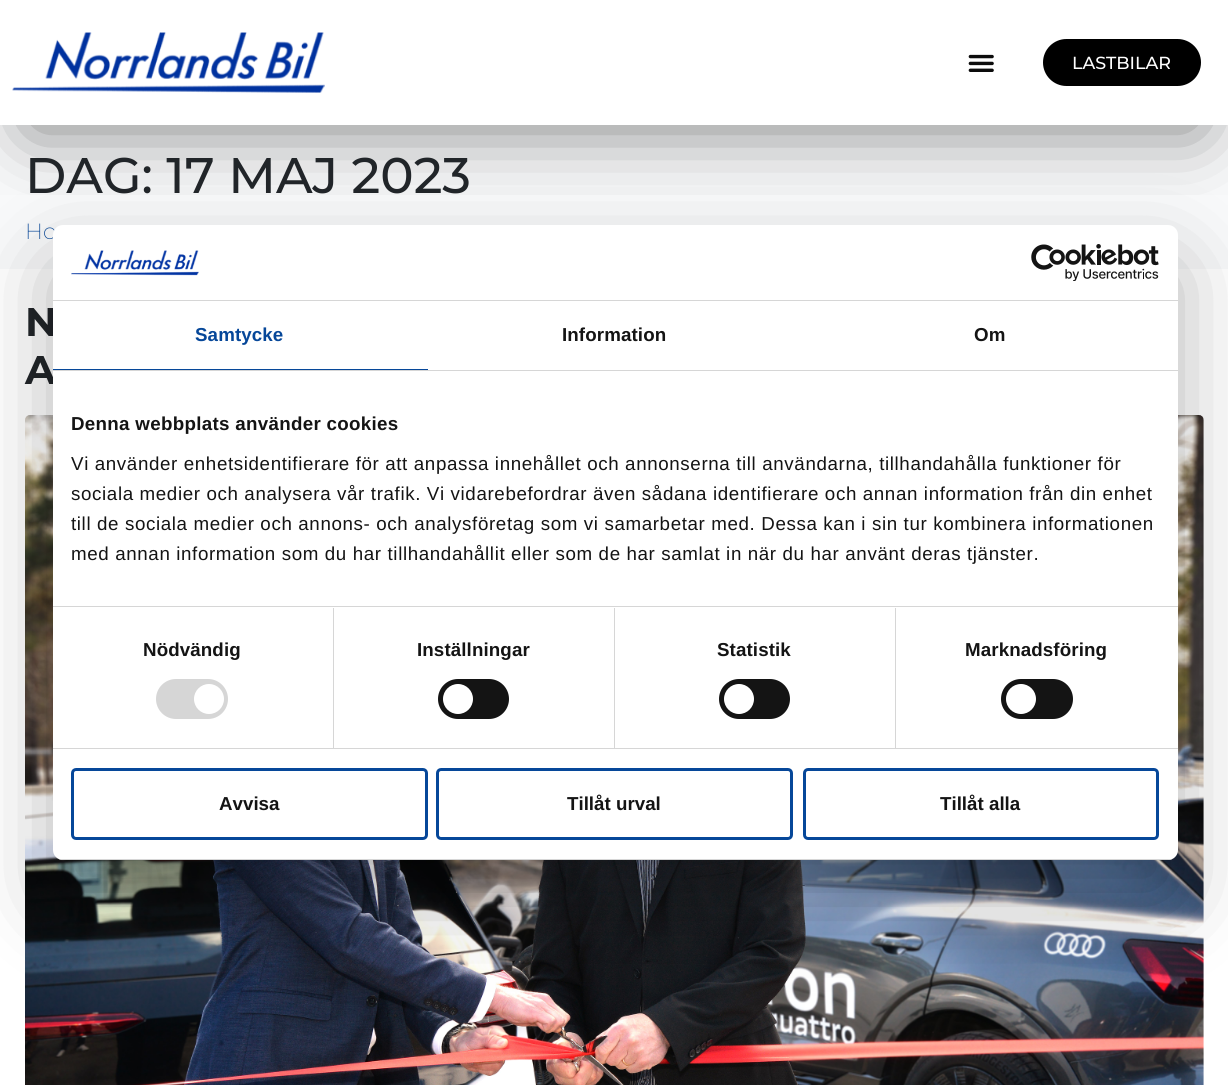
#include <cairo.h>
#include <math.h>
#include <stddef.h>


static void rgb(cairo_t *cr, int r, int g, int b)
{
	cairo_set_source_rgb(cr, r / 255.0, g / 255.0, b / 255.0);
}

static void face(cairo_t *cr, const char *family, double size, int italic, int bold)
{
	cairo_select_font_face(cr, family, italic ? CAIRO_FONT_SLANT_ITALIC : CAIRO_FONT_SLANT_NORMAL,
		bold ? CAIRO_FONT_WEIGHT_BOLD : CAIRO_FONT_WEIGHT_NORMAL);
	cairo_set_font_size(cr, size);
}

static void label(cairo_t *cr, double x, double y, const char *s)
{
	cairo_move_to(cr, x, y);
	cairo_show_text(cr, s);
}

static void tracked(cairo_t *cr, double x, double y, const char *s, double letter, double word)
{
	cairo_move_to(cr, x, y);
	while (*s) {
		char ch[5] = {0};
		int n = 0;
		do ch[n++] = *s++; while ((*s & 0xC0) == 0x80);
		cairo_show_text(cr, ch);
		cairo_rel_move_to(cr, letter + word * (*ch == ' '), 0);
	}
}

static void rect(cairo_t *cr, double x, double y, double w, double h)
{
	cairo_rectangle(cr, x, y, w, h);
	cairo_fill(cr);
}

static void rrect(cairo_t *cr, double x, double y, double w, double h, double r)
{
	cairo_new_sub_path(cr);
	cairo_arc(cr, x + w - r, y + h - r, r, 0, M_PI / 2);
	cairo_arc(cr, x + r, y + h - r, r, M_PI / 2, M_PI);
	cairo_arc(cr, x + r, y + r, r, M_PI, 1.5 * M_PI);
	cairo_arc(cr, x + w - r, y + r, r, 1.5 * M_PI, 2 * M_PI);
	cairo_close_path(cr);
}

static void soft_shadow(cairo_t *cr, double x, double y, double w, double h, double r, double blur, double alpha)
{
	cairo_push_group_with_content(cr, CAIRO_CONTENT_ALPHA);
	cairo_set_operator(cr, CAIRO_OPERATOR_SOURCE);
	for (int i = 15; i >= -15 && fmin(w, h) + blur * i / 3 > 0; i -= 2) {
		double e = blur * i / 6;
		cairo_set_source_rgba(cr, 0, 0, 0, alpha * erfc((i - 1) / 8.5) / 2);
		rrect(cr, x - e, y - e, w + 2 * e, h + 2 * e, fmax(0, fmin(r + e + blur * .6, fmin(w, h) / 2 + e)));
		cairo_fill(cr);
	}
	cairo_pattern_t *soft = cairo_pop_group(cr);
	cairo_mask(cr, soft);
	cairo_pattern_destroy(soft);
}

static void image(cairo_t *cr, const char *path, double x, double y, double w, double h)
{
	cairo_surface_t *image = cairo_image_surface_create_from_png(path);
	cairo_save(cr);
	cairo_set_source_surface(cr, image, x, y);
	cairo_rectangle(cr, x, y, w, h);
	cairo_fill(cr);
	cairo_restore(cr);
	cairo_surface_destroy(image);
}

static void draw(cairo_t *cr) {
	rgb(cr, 255, 255, 255);
	cairo_paint(cr);
	rgb(cr, 248, 249, 250);
	rect(cr, 0, 125, 1228, 144);
	cairo_save(cr);
	cairo_rectangle(cr, 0, 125, 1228, 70);
	cairo_clip(cr);
	rgb(cr, 0, 0, 0);
	soft_shadow(cr, 30, 64, 1169, 65, 0, 37.5, 0.5);
	cairo_restore(cr);
	image(cr, "image0.png", 12, 32, 313, 61);
	image(cr, "image1.png", 968, 54, 26, 18);
	rgb(cr, 0, 0, 0);
	rrect(cr, 1041.5, 37.5, 161, 50, 25);
	cairo_fill_preserve(cr);
	rgb(cr, 255, 255, 255);
	cairo_set_line_width(cr, 3);
	cairo_stroke(cr);
	face(cr, "Montserrat Medium", 17.5, 0, 0);
	label(cr, 1072, 69, "LASTBILAR");
	face(cr, "Montserrat Medium", 50, 0, 0);
	rgb(cr, 33, 37, 41);
	label(cr, 25, 193, "DAG: 17 MAJ 2023");
	face(cr, "Montserrat ExtraLight", 22, 0, 0);
	rgb(cr, 6, 71, 153);
	label(cr, 25, 239, "Ho");
	face(cr, "Montserrat", 40, 0, 1);
	rgb(cr, 33, 37, 41);
	label(cr, 25, 336, "N");
	label(cr, 25, 384, "A");
	image(cr, "image2.png", 25, 415, 1179, 670);
	rgb(cr, 0, 0, 0);
	soft_shadow(cr, 53, 265, 1125, 635, 10, 42.5, 0.3);
	rgb(cr, 255, 255, 255);
	rrect(cr, 53, 225, 1125, 635, 10);
	cairo_fill(cr);
	rgb(cr, 214, 214, 214);
	rect(cr, 53, 300, 1125, 1);
	image(cr, "image3.png", 71, 250, 128, 26);
	image(cr, "image4.png", 1031, 244, 128, 37);
	rect(cr, 53, 370, 1125, 1);
	rgb(cr, 6, 71, 153);
	rect(cr, 53, 369, 375, 1);
	face(cr, "Liberation Sans", 18.75, 0, 1);
	tracked(cr, 195, 341, "Samtycke", 0.1, 0);
	rgb(cr, 20, 20, 20);
	tracked(cr, 562, 341, "Information", 0.1, 0);
	tracked(cr, 974, 341, "Om", 0.1, 0);
	rgb(cr, 214, 214, 214);
	rect(cr, 53, 606, 1125, 1);
	rgb(cr, 20, 20, 20);
	tracked(cr, 71, 430, "Denna webbplats använder cookies", 0.3, 0);
	face(cr, "Liberation Sans", 18.75, 0, 0);
	tracked(cr, 71, 470, "Vi använder enhetsidentifierare för att anpassa innehållet och annonserna till användarna, tillhandahålla funktioner för", 0.62, 0);
	tracked(cr, 71, 500, "sociala medier och analysera vår trafik. Vi vidarebefordrar även sådana identifierare och annan information från din enhet", 0.62, 0);
	tracked(cr, 71, 530, "till de sociala medier och annons- och analysföretag som vi samarbetar med. Dessa kan i sin tur kombinera informationen", 0.62, 0);
	tracked(cr, 71, 560, "med annan information som du har tillhandahållit eller som de har samlat in när du har använt deras tjänster.", 0.62, 0);
	rgb(cr, 214, 214, 214);
	rect(cr, 53, 748, 1125, 1);
	rect(cr, 333, 608, 1, 140);
	face(cr, "Liberation Sans", 18.75, 0, 1);
	rgb(cr, 20, 20, 20);
	tracked(cr, 143, 656, "Nödvändig", 0.1, 0);
	rgb(cr, 214, 214, 214);
	rrect(cr, 156, 679, 72, 40, 20);
	cairo_fill(cr);
	rgb(cr, 255, 255, 255);
	cairo_arc(cr, 209, 699, 15, 0, 2 * M_PI);
	cairo_fill(cr);
	rgb(cr, 214, 214, 214);
	rect(cr, 614, 608, 1, 140);
	rgb(cr, 20, 20, 20);
	tracked(cr, 417, 656, "Inställningar", 0.1, 0);
	rrect(cr, 438, 679, 71, 40, 20);
	cairo_fill(cr);
	rgb(cr, 255, 255, 255);
	cairo_arc(cr, 458, 699, 15, 0, 2 * M_PI);
	cairo_fill(cr);
	rgb(cr, 214, 214, 214);
	rect(cr, 895, 608, 1, 140);
	rgb(cr, 20, 20, 20);
	tracked(cr, 717, 656, "Statistik", 0.1, 0);
	rrect(cr, 719, 679, 71, 40, 20);
	cairo_fill(cr);
	rgb(cr, 255, 255, 255);
	cairo_arc(cr, 739, 699, 15, 0, 2 * M_PI);
	cairo_fill(cr);
	rgb(cr, 20, 20, 20);
	tracked(cr, 965, 656, "Marknadsföring", 0.1, 0);
	rrect(cr, 1001, 679, 72, 40, 20);
	cairo_fill(cr);
	rgb(cr, 255, 255, 255);
	cairo_arc(cr, 1021, 699, 15, 0, 2 * M_PI);
	cairo_fill(cr);
	cairo_save(cr);
	rrect(cr, 53, 225, 1125, 635, 10);
	cairo_clip(cr);
	rgb(cr, 214, 214, 214);
	rect(cr, 53, 859, 1125, 1);
	cairo_restore(cr);
	rrect(cr, 72.5, 769.5, 354, 69, 3.5);
	rgb(cr, 6, 71, 153);
	cairo_stroke(cr);
	rgb(cr, 20, 20, 20);
	label(cr, 219, 810, "Avvisa");
	rrect(cr, 437.5, 769.5, 354, 69, 3.5);
	rgb(cr, 6, 71, 153);
	cairo_stroke(cr);
	rgb(cr, 20, 20, 20);
	label(cr, 567, 810, "Tillåt urval");
	rrect(cr, 804.5, 769.5, 353, 69, 3.5);
	rgb(cr, 6, 71, 153);
	cairo_stroke(cr);
	rgb(cr, 20, 20, 20);
	label(cr, 940, 810, "Tillåt alla");
}

int main(void) {
	cairo_surface_t *surface = cairo_image_surface_create(CAIRO_FORMAT_RGB24, 1228, 1085);
	cairo_t *cr = cairo_create(surface);
	cairo_font_options_t *options = cairo_font_options_create();
	cairo_font_options_set_hint_metrics(options, CAIRO_HINT_METRICS_OFF);
	cairo_font_options_set_hint_style(options, CAIRO_HINT_STYLE_NONE);
	cairo_set_font_options(cr, options);
	cairo_set_miter_limit(cr, 4);
	draw(cr);
	cairo_surface_write_to_png(surface, "render.png");
	cairo_font_options_destroy(options);
	cairo_destroy(cr);
	cairo_surface_destroy(surface);
	return 0;
}
